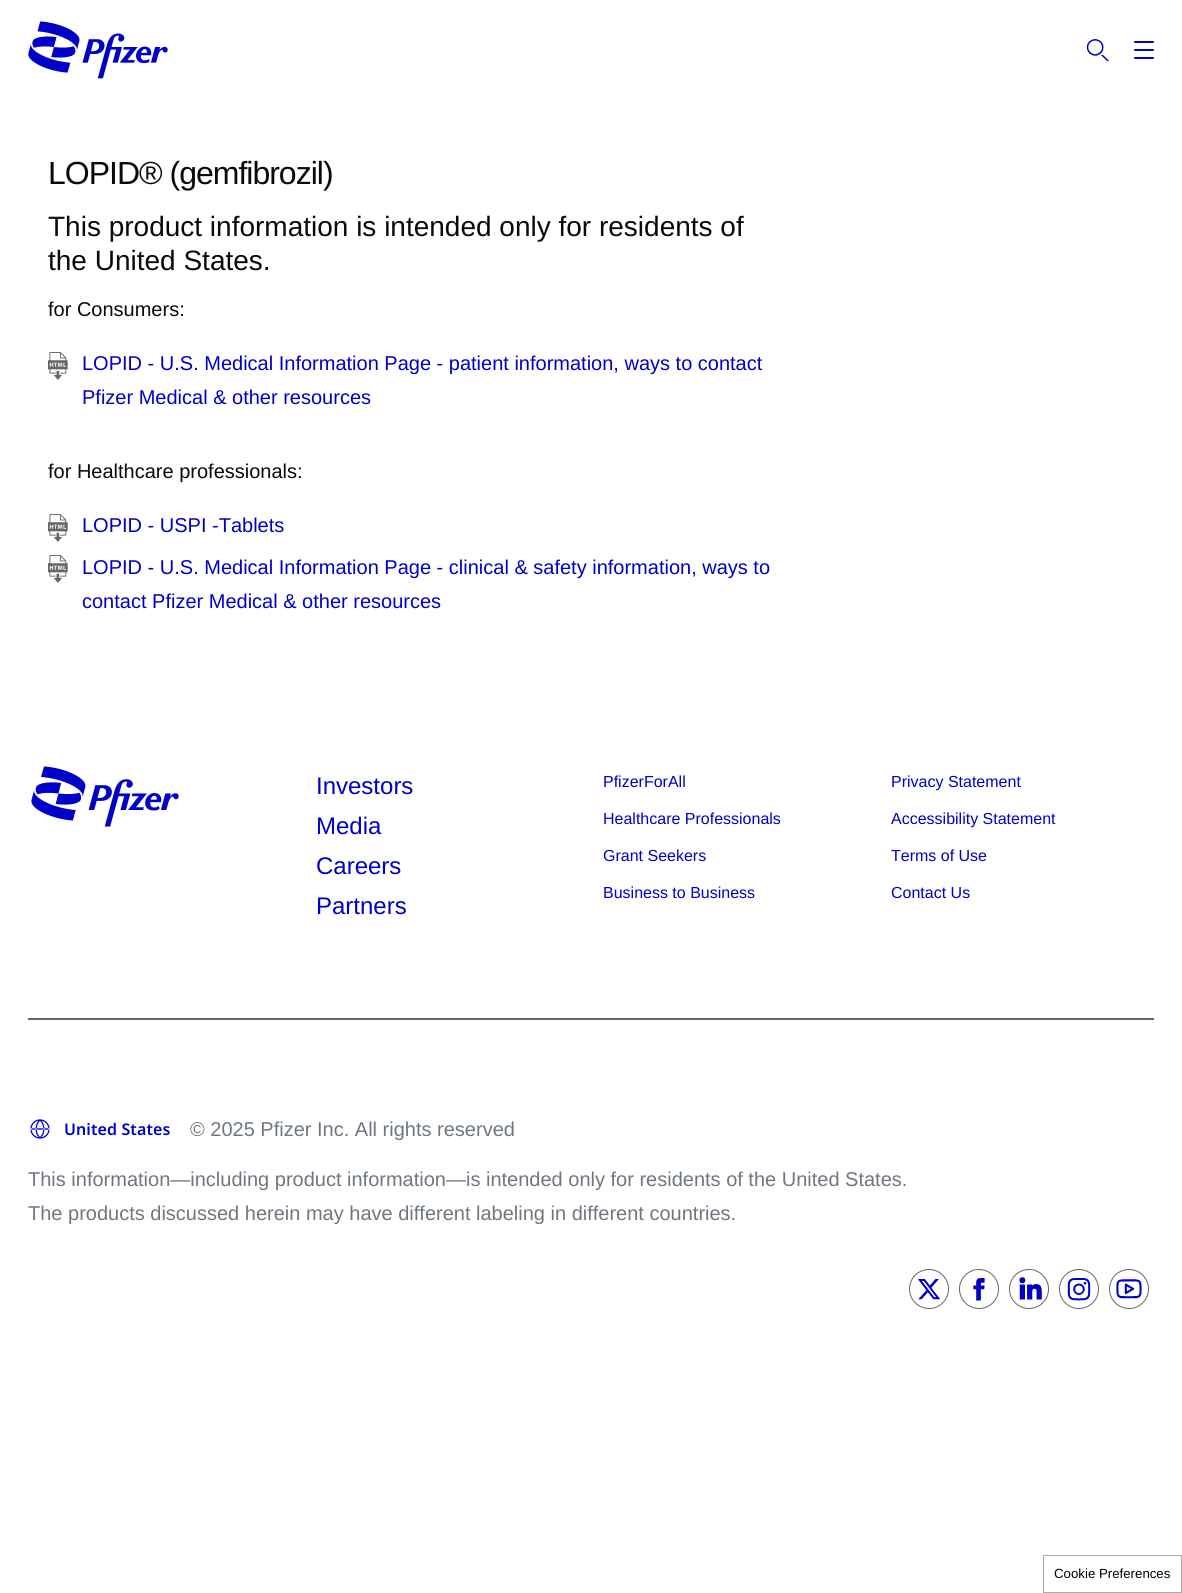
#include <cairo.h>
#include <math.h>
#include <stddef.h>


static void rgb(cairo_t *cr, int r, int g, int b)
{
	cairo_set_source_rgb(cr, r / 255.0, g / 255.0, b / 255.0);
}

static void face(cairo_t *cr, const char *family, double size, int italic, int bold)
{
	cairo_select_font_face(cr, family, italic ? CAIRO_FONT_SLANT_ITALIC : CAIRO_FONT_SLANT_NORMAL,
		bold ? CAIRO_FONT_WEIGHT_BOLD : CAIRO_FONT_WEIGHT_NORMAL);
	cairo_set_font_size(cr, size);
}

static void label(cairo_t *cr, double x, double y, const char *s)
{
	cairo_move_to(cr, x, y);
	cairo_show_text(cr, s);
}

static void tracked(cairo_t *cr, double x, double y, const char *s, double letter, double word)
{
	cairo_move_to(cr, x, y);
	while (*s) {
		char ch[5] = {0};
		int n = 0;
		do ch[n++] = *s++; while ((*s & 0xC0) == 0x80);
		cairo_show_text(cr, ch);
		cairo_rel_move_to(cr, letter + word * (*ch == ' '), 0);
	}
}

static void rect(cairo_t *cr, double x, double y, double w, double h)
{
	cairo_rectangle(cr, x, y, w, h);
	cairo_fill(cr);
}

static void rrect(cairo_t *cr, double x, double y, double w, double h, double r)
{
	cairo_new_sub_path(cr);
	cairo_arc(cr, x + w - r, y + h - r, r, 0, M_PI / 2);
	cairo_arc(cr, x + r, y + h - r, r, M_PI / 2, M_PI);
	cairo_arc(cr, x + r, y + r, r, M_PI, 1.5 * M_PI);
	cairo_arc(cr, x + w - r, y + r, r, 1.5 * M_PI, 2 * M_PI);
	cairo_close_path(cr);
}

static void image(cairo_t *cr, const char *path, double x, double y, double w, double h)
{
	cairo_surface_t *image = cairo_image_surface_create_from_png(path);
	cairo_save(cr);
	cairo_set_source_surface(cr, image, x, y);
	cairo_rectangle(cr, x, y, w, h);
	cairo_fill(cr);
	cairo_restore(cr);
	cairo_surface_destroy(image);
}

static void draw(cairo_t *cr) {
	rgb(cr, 255, 255, 255);
	cairo_paint(cr);
	image(cr, "image0.png", 28, 21, 140, 58);
	image(cr, "image1.png", 1086, 39, 23, 22);
	rgb(cr, 0, 0, 201);
	rrect(cr, 1134, 41, 20, 2, 1);
	cairo_fill(cr);
	rrect(cr, 1134, 49, 20, 2, 1);
	cairo_fill(cr);
	rrect(cr, 1134, 57, 20, 2, 1);
	cairo_fill(cr);
	face(cr, "Liberation Sans", 32, 0, 0);
	rgb(cr, 10, 10, 10);
	tracked(cr, 48, 184, "LOPID® (gemfibrozil)", -1, 0);
	face(cr, "Liberation Sans", 28, 0, 0);
	label(cr, 48, 236, "This product information is intended only for residents of");
	label(cr, 48, 270, "the United States.");
	face(cr, "Liberation Sans", 20, 0, 0);
	label(cr, 48, 316, "for Consumers:");
	image(cr, "image2.png", 48, 352, 20, 28);
	rgb(cr, 0, 0, 201);
	label(cr, 82, 370, "LOPID - U.S. Medical Information Page - patient information, ways to contact");
	label(cr, 82, 404, "Pfizer Medical & other resources");
	rgb(cr, 10, 10, 10);
	label(cr, 48, 478, "for Healthcare professionals:");
	image(cr, "image2.png", 48, 514, 20, 28);
	rgb(cr, 0, 0, 201);
	label(cr, 82, 532, "LOPID - USPI -Tablets");
	image(cr, "image2.png", 48, 555, 20, 28);
	label(cr, 82, 574, "LOPID - U.S. Medical Information Page - clinical & safety information, ways to");
	label(cr, 82, 608, "contact Pfizer Medical & other resources");
	image(cr, "image3.png", 31, 766, 148, 61);
	face(cr, "Liberation Sans", 24, 0, 0);
	label(cr, 316, 794, "Investors");
	label(cr, 316, 834, "Media");
	label(cr, 316, 874, "Careers");
	label(cr, 316, 914, "Partners");
	face(cr, "Liberation Sans", 16, 0, 0);
	label(cr, 603, 787, "PfizerForAll");
	label(cr, 603, 824, "Healthcare Professionals");
	label(cr, 603, 861, "Grant Seekers");
	label(cr, 603, 898, "Business to Business");
	label(cr, 891, 787, "Privacy Statement");
	label(cr, 891, 824, "Accessibility Statement");
	label(cr, 891, 861, "Terms of Use");
	label(cr, 891, 898, "Contact Us");
	rgb(cr, 102, 102, 102);
	rect(cr, 28, 1018, 1126, 2);
	image(cr, "image4.png", 30, 1119, 20, 20);
	face(cr, "Noto Sans SemiBold", 16, 0, 0);
	rgb(cr, 0, 0, 201);
	tracked(cr, 64, 1135, "United States", 0.1, 0);
	face(cr, "Liberation Sans", 20, 0, 0);
	rgb(cr, 110, 119, 129);
	label(cr, 190, 1136, "© 2025 Pfizer Inc. All rights reserved");
	label(cr, 28, 1186, "This information—including product information—is intended only for residents of the United States.");
	label(cr, 28, 1220, "The products discussed herein may have different labeling in different countries.");
	cairo_new_path(cr);
	cairo_arc(cr, 929, 1289, 19.5, 0, 2 * M_PI);
	rgb(cr, 102, 102, 102);
	cairo_set_line_width(cr, 1);
	cairo_stroke(cr);
	image(cr, "image5.png", 918, 1279, 23, 21);
	cairo_arc(cr, 979, 1289, 19.5, 0, 2 * M_PI);
	cairo_stroke(cr);
	image(cr, "image6.png", 973, 1278, 12, 23);
	cairo_arc(cr, 1029, 1289, 19.5, 0, 2 * M_PI);
	cairo_stroke(cr);
	image(cr, "image7.png", 1019, 1277, 23, 23);
	cairo_arc(cr, 1079, 1289, 19.5, 0, 2 * M_PI);
	cairo_stroke(cr);
	image(cr, "image8.png", 1067, 1278, 24, 23);
	cairo_arc(cr, 1129, 1289, 19.5, 0, 2 * M_PI);
	cairo_stroke(cr);
	image(cr, "image9.png", 1116, 1279, 26, 20);
	cairo_rectangle(cr, 1043.5, 1555.5, 138, 37);
	rgb(cr, 170, 170, 170);
	cairo_stroke(cr);
	face(cr, "Liberation Sans", 13.25, 0, 0);
	rgb(cr, 0, 0, 0);
	label(cr, 1054, 1578, "Cookie Preferences");
}

int main(void) {
	cairo_surface_t *surface = cairo_image_surface_create(CAIRO_FORMAT_RGB24, 1182, 1593);
	cairo_t *cr = cairo_create(surface);
	cairo_font_options_t *options = cairo_font_options_create();
	cairo_font_options_set_hint_metrics(options, CAIRO_HINT_METRICS_OFF);
	cairo_font_options_set_hint_style(options, CAIRO_HINT_STYLE_NONE);
	cairo_set_font_options(cr, options);
	cairo_set_miter_limit(cr, 4);
	draw(cr);
	cairo_surface_write_to_png(surface, "render.png");
	cairo_font_options_destroy(options);
	cairo_destroy(cr);
	cairo_surface_destroy(surface);
	return 0;
}
